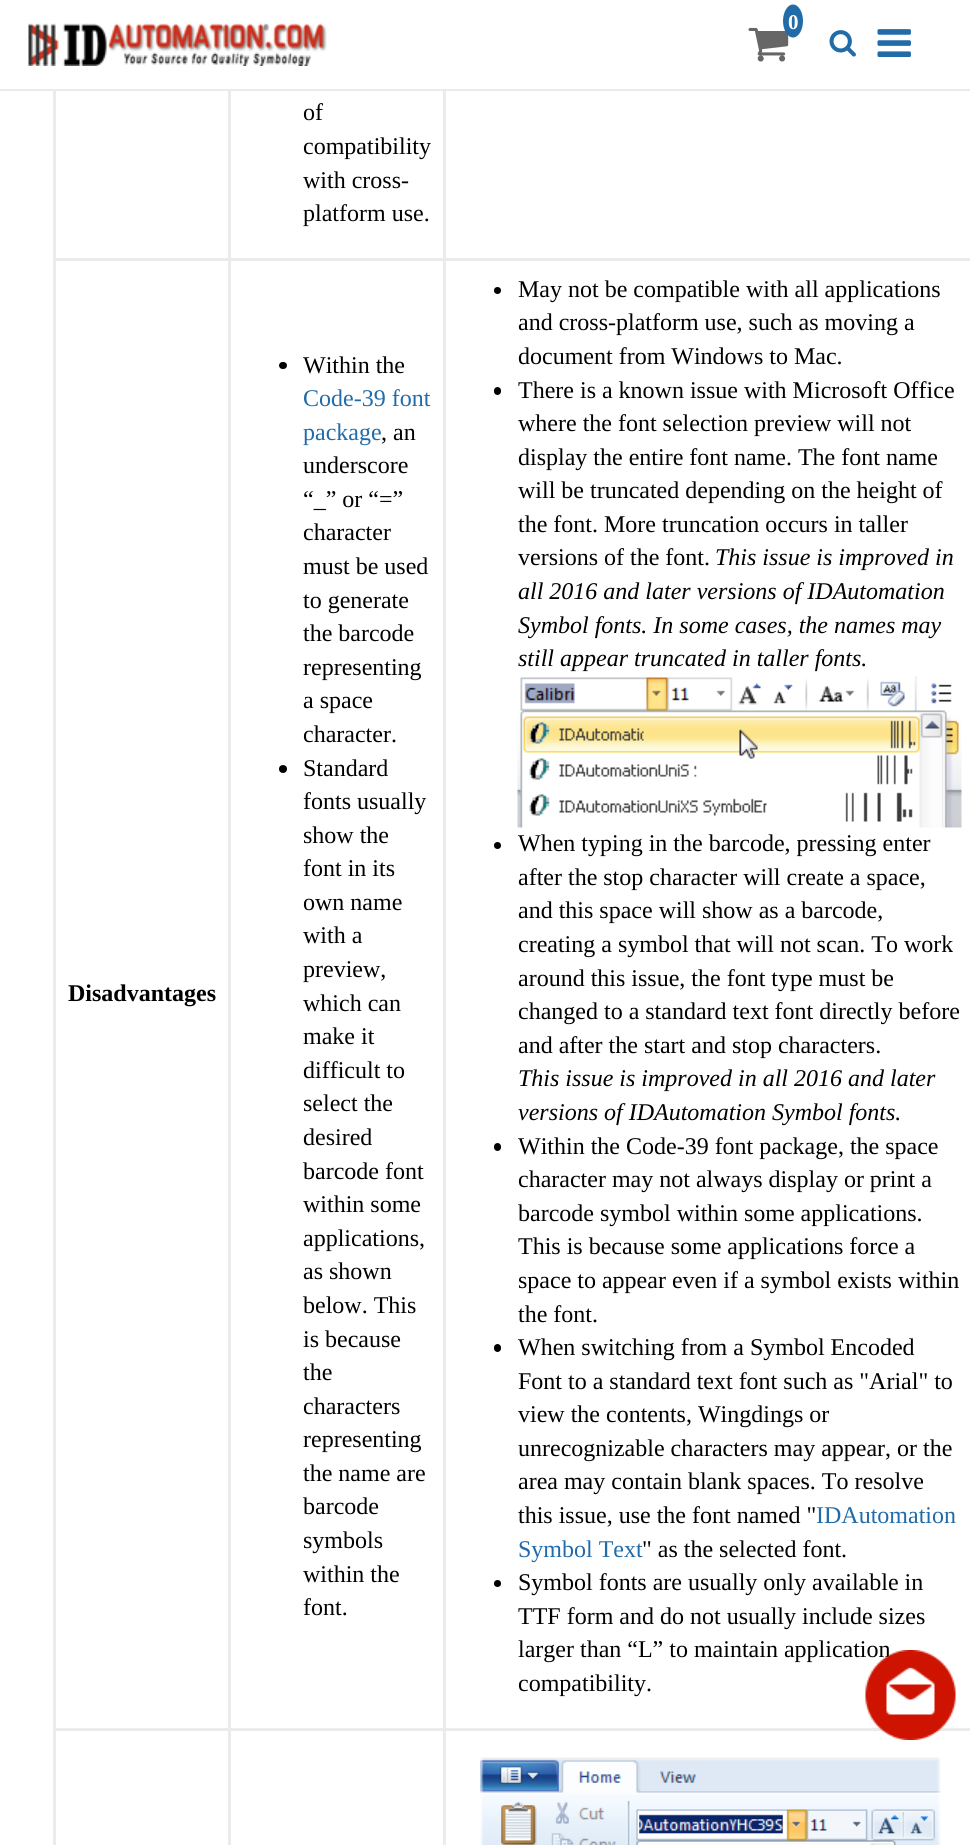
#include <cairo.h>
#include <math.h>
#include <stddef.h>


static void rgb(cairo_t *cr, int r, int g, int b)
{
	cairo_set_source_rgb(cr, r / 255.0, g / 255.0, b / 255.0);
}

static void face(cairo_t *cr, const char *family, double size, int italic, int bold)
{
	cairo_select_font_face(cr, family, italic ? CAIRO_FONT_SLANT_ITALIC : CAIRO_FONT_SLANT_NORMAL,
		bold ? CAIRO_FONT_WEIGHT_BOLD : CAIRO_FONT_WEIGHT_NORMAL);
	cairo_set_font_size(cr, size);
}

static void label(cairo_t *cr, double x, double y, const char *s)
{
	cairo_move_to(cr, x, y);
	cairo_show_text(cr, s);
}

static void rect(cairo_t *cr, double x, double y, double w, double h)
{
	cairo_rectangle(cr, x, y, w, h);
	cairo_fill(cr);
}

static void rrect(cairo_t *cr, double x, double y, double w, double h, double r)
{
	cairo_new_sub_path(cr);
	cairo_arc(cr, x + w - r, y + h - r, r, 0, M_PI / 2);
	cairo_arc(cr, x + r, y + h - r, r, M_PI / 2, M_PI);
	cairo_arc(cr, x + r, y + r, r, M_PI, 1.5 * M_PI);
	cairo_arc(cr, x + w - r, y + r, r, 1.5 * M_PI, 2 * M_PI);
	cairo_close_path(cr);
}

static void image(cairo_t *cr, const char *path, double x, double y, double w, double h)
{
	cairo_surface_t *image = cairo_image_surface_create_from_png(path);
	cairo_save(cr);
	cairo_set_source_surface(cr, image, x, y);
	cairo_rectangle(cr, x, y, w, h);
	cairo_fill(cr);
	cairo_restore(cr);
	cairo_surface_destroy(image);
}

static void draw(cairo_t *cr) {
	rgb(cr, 255, 255, 255);
	cairo_paint(cr);
	rgb(cr, 235, 235, 235);
	rect(cr, 0, 89, 970, 2);
	image(cr, "image0.png", 28, 23, 299, 43);
	image(cr, "image1.png", 748, 27, 41, 35);
	rgb(cr, 32, 107, 168);
	cairo_new_path(cr);
	cairo_move_to(cr, 793, 4.5);
	cairo_curve_to(cr, 798.5, 4.5, 803, 12, 803, 21);
	cairo_curve_to(cr, 803, 30, 798.5, 37.5, 793, 37.5);
	cairo_curve_to(cr, 787.5, 37.5, 783, 30, 783, 21);
	cairo_curve_to(cr, 783, 12, 787.5, 4.5, 793, 4.5);
	cairo_close_path(cr);
	cairo_fill(cr);
	face(cr, "Liberation Serif", 21, 0, 1);
	rgb(cr, 255, 255, 255);
	label(cr, 788, 29, "0");
	image(cr, "image2.png", 829, 30, 27, 27);
	image(cr, "image3.png", 877, 29, 34, 28);
	rgb(cr, 235, 235, 235);
	rect(cr, 53, 91, 3, 1754);
	rect(cr, 443, 258, 527, 3);
	rect(cr, 443, 1728, 527, 3);
	rect(cr, 443, 1728, 3, 117);
	rect(cr, 228, 1728, 218, 3);
	rect(cr, 443, 258, 3, 1473);
	rect(cr, 228, 258, 218, 3);
	rect(cr, 228, 1728, 3, 117);
	rect(cr, 53, 1728, 178, 3);
	rect(cr, 228, 258, 3, 1473);
	rect(cr, 53, 258, 178, 3);
	rect(cr, 228, 91, 3, 170);
	face(cr, "Liberation Serif", 24, 0, 0);
	rgb(cr, 0, 0, 0);
	label(cr, 303, 120, "of");
	label(cr, 303, 154, "compatibility");
	label(cr, 303, 188, "with cross-");
	label(cr, 303, 221, "platform use.");
	rgb(cr, 235, 235, 235);
	rect(cr, 443, 91, 3, 170);
	face(cr, "Liberation Serif", 24, 0, 1);
	rgb(cr, 0, 0, 0);
	label(cr, 68, 1001, "Disadvantages");
	rrect(cr, 279, 362, 8, 7, 3.5);
	cairo_fill(cr);
	face(cr, "Liberation Serif", 24, 0, 0);
	label(cr, 303, 373, "Within the");
	rgb(cr, 32, 107, 168);
	label(cr, 303, 406, "Code-39 font");
	label(cr, 303, 440, "package");
	rgb(cr, 0, 0, 0);
	label(cr, 381, 440, ", an");
	label(cr, 303, 473, "underscore");
	label(cr, 303, 507, "“_” or “=”");
	label(cr, 303, 540, "character");
	label(cr, 303, 574, "must be used");
	label(cr, 303, 608, "to generate");
	label(cr, 303, 641, "the barcode");
	label(cr, 303, 675, "representing");
	label(cr, 303, 708, "a space");
	label(cr, 303, 742, "character.");
	cairo_new_path(cr);
	cairo_arc(cr, 283, 769, 4, 0, 2 * M_PI);
	cairo_fill(cr);
	label(cr, 303, 776, "Standard");
	label(cr, 303, 809, "fonts usually");
	label(cr, 303, 843, "show the");
	label(cr, 303, 876, "font in its");
	label(cr, 303, 910, "own name");
	label(cr, 303, 943, "with a");
	label(cr, 303, 977, "preview,");
	label(cr, 303, 1011, "which can");
	label(cr, 303, 1044, "make it");
	label(cr, 303, 1078, "difficult to");
	label(cr, 303, 1111, "select the");
	label(cr, 303, 1145, "desired");
	label(cr, 303, 1179, "barcode font");
	label(cr, 303, 1212, "within some");
	label(cr, 303, 1246, "applications,");
	label(cr, 303, 1279, "as shown");
	label(cr, 303, 1313, "below. This");
	label(cr, 303, 1347, "is because");
	label(cr, 303, 1380, "the");
	label(cr, 303, 1414, "characters");
	label(cr, 303, 1447, "representing");
	label(cr, 303, 1481, "the name are");
	label(cr, 303, 1514, "barcode");
	label(cr, 303, 1548, "symbols");
	label(cr, 303, 1582, "within the");
	label(cr, 303, 1615, "font.");
	cairo_new_path(cr);
	cairo_arc(cr, 497.5, 290.5, 3.5, 0, 2 * M_PI);
	cairo_fill(cr);
	label(cr, 518, 297, "May not be compatible with all applications");
	label(cr, 518, 330, "and cross-platform use, such as moving a");
	label(cr, 518, 364, "document from Windows to Mac.");
	rrect(cr, 494, 387, 7, 8, 3.5);
	cairo_fill(cr);
	label(cr, 518, 398, "There is a known issue with Microsoft Office");
	label(cr, 518, 431, "where the font selection preview will not");
	label(cr, 518, 465, "display the entire font name. The font name");
	label(cr, 518, 498, "will be truncated depending on the height of");
	label(cr, 518, 532, "the font. More truncation occurs in taller");
	label(cr, 518, 565, "versions of the font.");
	face(cr, "Liberation Serif", 24, 1, 0);
	label(cr, 715, 565, "This issue is improved in");
	label(cr, 518, 599, "all 2016 and later versions of IDAutomation");
	label(cr, 518, 633, "Symbol fonts. In some cases, the names may");
	label(cr, 518, 666, "still appear truncated in taller fonts.");
	image(cr, "image4.png", 517, 676, 445, 152);
	cairo_arc(cr, 497.5, 845.5, 3.5, 0, 2 * M_PI);
	cairo_fill(cr);
	face(cr, "Liberation Serif", 24, 0, 0);
	label(cr, 518, 851, "When typing in the barcode, pressing enter");
	label(cr, 518, 885, "after the stop character will create a space,");
	label(cr, 518, 918, "and this space will show as a barcode,");
	label(cr, 518, 952, "creating a symbol that will not scan. To work");
	label(cr, 518, 986, "around this issue, the font type must be");
	label(cr, 518, 1019, "changed to a standard text font directly before");
	label(cr, 518, 1053, "and after the start and stop characters.");
	face(cr, "Liberation Serif", 24, 1, 0);
	label(cr, 518, 1086, "This issue is improved in all 2016 and later");
	label(cr, 518, 1120, "versions of IDAutomation Symbol fonts.");
	rrect(cr, 494, 1143, 7, 8, 3.5);
	cairo_fill(cr);
	face(cr, "Liberation Serif", 24, 0, 0);
	label(cr, 518, 1154, "Within the Code-39 font package, the space");
	label(cr, 518, 1187, "character may not always display or print a");
	label(cr, 518, 1221, "barcode symbol within some applications.");
	label(cr, 518, 1254, "This is because some applications force a");
	label(cr, 518, 1288, "space to appear even if a symbol exists within");
	label(cr, 518, 1322, "the font.");
	rrect(cr, 494, 1344, 7, 8, 3.5);
	cairo_fill(cr);
	label(cr, 518, 1355, "When switching from a Symbol Encoded");
	label(cr, 518, 1389, "Font to a standard text font such as \"Arial\" to");
	label(cr, 518, 1422, "view the contents, Wingdings or");
	label(cr, 518, 1456, "unrecognizable characters may appear, or the");
	label(cr, 518, 1489, "area may contain blank spaces. To resolve");
	label(cr, 518, 1523, "this issue, use the font named \"");
	rgb(cr, 32, 107, 168);
	label(cr, 816, 1523, "IDAutomation");
	label(cr, 518, 1557, "Symbol Text");
	rgb(cr, 0, 0, 0);
	label(cr, 642, 1557, "\" as the selected font.");
	cairo_new_path(cr);
	cairo_arc(cr, 497.5, 1583.5, 3.5, 0, 2 * M_PI);
	cairo_fill(cr);
	label(cr, 518, 1590, "Symbol fonts are usually only available in");
	label(cr, 518, 1624, "TTF form and do not usually include sizes");
	label(cr, 518, 1657, "larger than “L” to maintain application");
	label(cr, 518, 1691, "compatibility.");
	image(cr, "image5.png", 480, 1757, 461, 88);
	image(cr, "image6.png", 865, 1650, 91, 90);
}

int main(void) {
	cairo_surface_t *surface = cairo_image_surface_create(CAIRO_FORMAT_RGB24, 970, 1845);
	cairo_t *cr = cairo_create(surface);
	cairo_font_options_t *options = cairo_font_options_create();
	cairo_font_options_set_hint_metrics(options, CAIRO_HINT_METRICS_OFF);
	cairo_font_options_set_hint_style(options, CAIRO_HINT_STYLE_NONE);
	cairo_set_font_options(cr, options);
	cairo_set_miter_limit(cr, 4);
	draw(cr);
	cairo_surface_write_to_png(surface, "render.png");
	cairo_font_options_destroy(options);
	cairo_destroy(cr);
	cairo_surface_destroy(surface);
	return 0;
}
